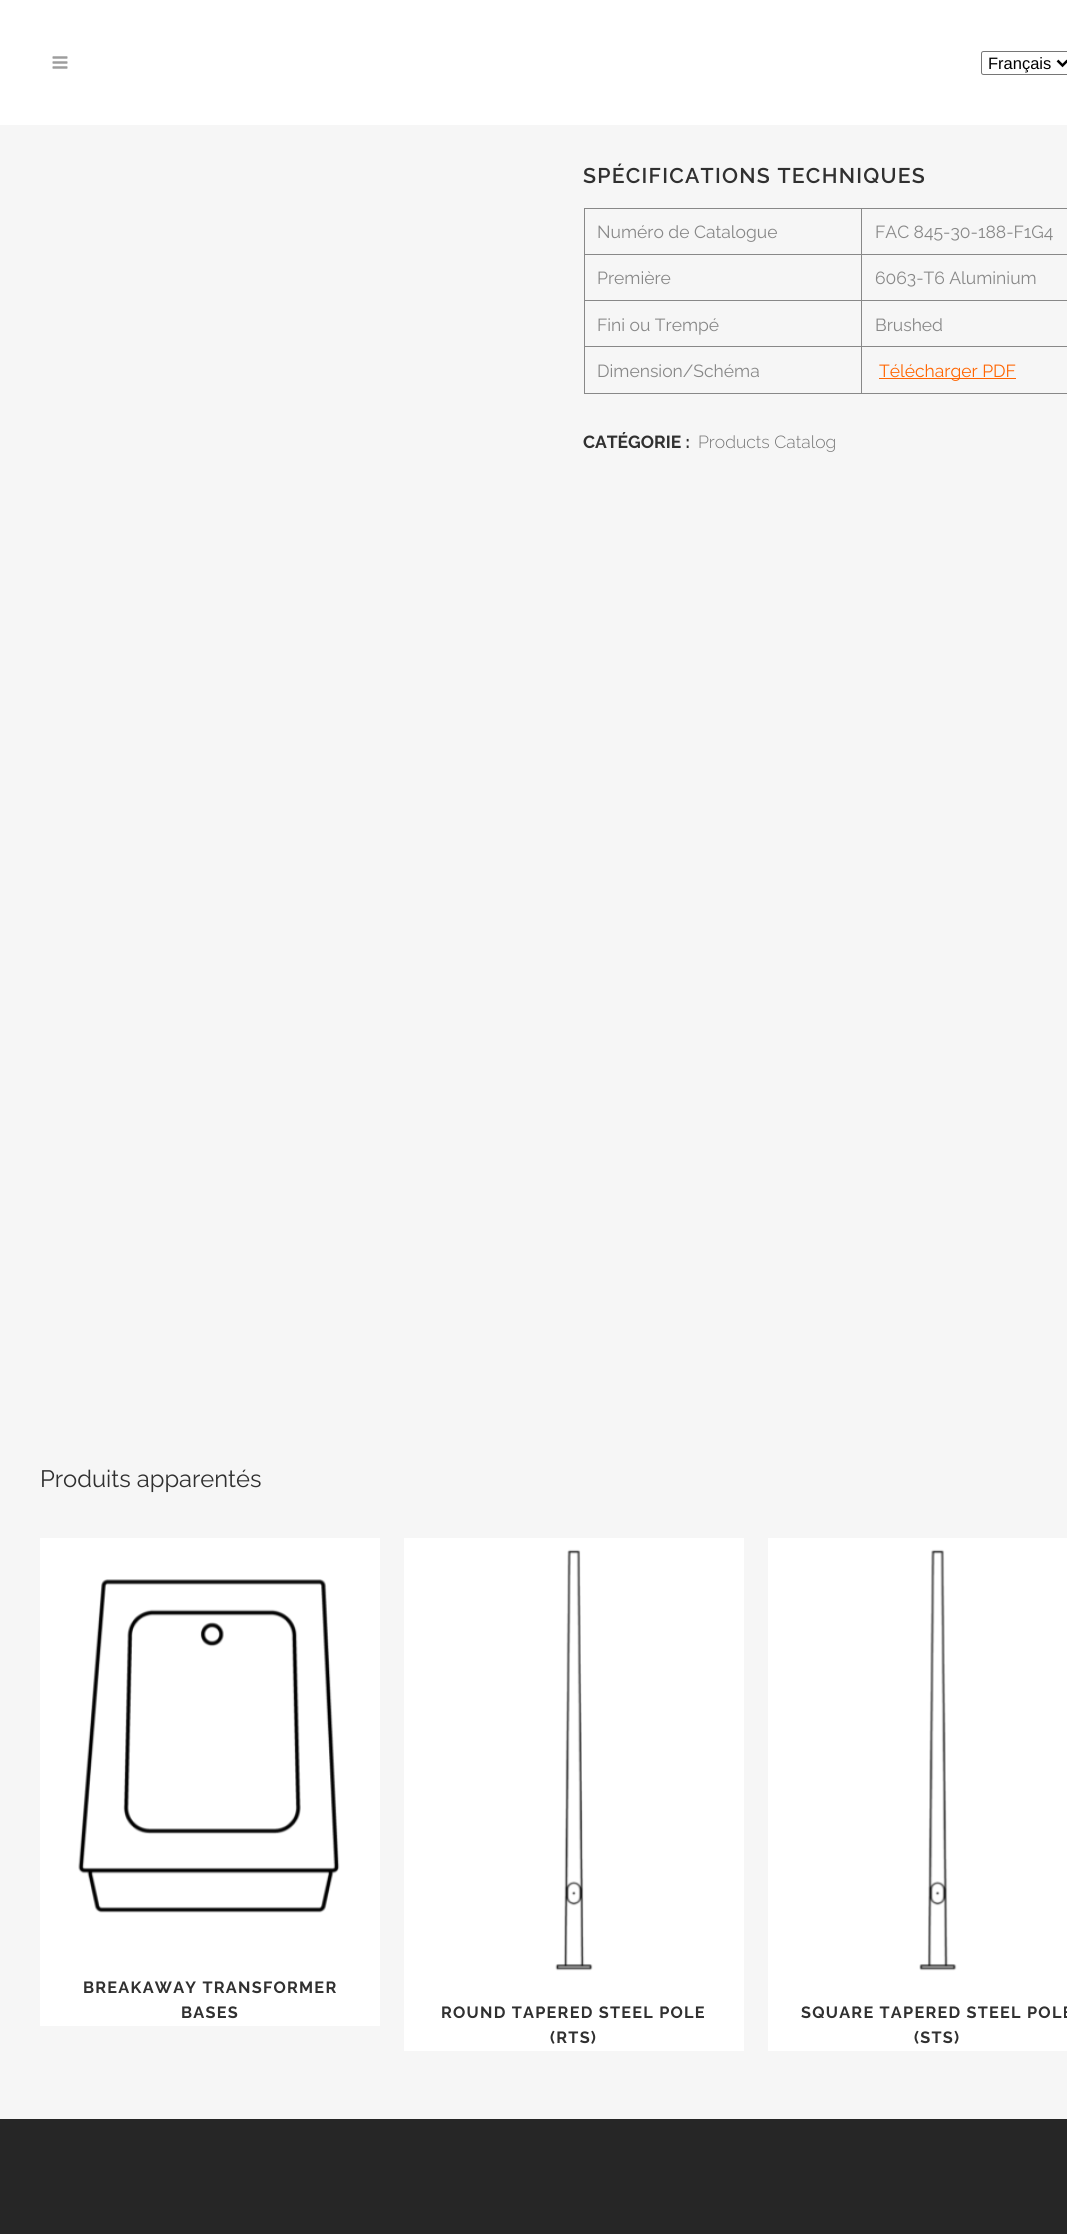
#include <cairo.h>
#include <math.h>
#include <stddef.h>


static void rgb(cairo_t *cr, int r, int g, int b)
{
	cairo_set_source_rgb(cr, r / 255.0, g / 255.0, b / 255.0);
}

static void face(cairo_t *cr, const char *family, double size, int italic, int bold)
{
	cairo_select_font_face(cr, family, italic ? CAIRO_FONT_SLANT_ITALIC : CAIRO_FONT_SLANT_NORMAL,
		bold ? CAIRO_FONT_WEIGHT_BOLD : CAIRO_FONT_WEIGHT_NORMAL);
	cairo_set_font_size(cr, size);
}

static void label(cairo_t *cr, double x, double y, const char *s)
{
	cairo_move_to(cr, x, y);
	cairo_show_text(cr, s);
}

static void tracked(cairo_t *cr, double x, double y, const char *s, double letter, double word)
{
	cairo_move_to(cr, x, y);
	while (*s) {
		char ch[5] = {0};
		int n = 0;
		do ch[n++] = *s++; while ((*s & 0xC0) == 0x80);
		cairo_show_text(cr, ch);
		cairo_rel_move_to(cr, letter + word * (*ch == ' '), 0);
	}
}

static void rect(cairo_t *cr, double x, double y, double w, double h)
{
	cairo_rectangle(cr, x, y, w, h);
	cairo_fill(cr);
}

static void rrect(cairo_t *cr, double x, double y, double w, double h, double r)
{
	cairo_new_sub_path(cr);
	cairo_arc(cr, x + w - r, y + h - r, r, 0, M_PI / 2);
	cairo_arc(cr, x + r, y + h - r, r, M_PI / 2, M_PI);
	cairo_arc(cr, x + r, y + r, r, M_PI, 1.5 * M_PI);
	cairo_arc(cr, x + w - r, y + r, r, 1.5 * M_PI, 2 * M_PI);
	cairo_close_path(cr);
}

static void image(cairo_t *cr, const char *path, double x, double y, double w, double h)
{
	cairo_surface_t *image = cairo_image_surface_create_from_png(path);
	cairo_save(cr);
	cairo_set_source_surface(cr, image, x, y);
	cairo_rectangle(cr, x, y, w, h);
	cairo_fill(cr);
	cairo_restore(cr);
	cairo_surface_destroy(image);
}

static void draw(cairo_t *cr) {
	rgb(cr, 246, 246, 246);
	cairo_paint(cr);
	rgb(cr, 255, 255, 255);
	rect(cr, 0, 0, 1067, 125);
	image(cr, "image0.png", 52, 56, 16, 13);
	rrect(cr, 981.5, 51.5, 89, 23, 2);
	rgb(cr, 118, 118, 118);
	cairo_set_line_width(cr, 1);
	cairo_stroke(cr);
	cairo_new_path(cr);
	cairo_move_to(cr, 1057.5, 60.5);
	cairo_line_to(cr, 1062.5, 65.5);
	cairo_line_to(cr, 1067.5, 60.5);
	rgb(cr, 0, 0, 0);
	cairo_set_line_width(cr, 2.5);
	cairo_stroke(cr);
	face(cr, "Liberation Sans", 16.5, 0, 0);
	label(cr, 988, 69, "Français");
	face(cr, "Raleway SemiBold", 21.25, 0, 0);
	rgb(cr, 48, 48, 48);
	tracked(cr, 583, 183, "SPÉCIFICATIONS TECHNIQUES", 1.25, 0);
	rgb(cr, 136, 136, 136);
	rect(cr, 861, 208, 206, 1);
	rect(cr, 861, 254, 206, 1);
	rect(cr, 861, 300, 206, 1);
	rect(cr, 861, 346, 206, 1);
	rect(cr, 861, 393, 206, 1);
	rect(cr, 861, 346, 1, 48);
	rect(cr, 584, 346, 279, 1);
	rect(cr, 861, 300, 1, 48);
	rect(cr, 584, 300, 279, 1);
	rect(cr, 861, 254, 1, 47);
	rect(cr, 584, 254, 279, 1);
	rect(cr, 861, 208, 1, 47);
	rect(cr, 584, 208, 279, 1);
	rect(cr, 584, 393, 279, 1);
	rect(cr, 584, 346, 1, 48);
	rect(cr, 584, 300, 1, 48);
	rect(cr, 584, 254, 1, 47);
	rect(cr, 584, 208, 1, 47);
	face(cr, "Raleway", 17.5, 0, 0);
	label(cr, 597, 238, "Numéro de Catalogue");
	label(cr, 875, 238, "FAC 845-30-188-F1G4");
	label(cr, 597, 284, "Première");
	label(cr, 875, 284, "6063-T6 Aluminium");
	label(cr, 597, 331, "Fini ou Trempé");
	label(cr, 875, 331, "Brushed");
	label(cr, 597, 377, "Dimension/Schéma");
	rgb(cr, 255, 102, 2);
	rect(cr, 879, 378, 137, 1);
	label(cr, 879, 377, "Télécharger PDF");
	face(cr, "Raleway", 17.5, 0, 1);
	rgb(cr, 48, 48, 48);
	label(cr, 583, 448, "CATÉGORIE :");
	face(cr, "Raleway Light", 17.5, 0, 0);
	rgb(cr, 119, 119, 119);
	label(cr, 698, 448, "Products Catalog");
	face(cr, "Raleway", 23.75, 0, 0);
	rgb(cr, 48, 48, 48);
	label(cr, 40, 1487, "Produits apparentés");
	rgb(cr, 255, 255, 255);
	rect(cr, 40, 1538, 340, 488);
	image(cr, "image1.png", 78, 1579, 262, 334);
	face(cr, "Raleway", 16.25, 0, 1);
	rgb(cr, 48, 48, 48);
	tracked(cr, 83, 1993, "BREAKAWAY TRANSFORMER", 1.25, 0);
	tracked(cr, 181, 2018, "BASES", 1.25, 0);
	rgb(cr, 255, 255, 255);
	rect(cr, 404, 1538, 340, 513);
	image(cr, "image2.png", 555, 1549, 38, 422);
	rgb(cr, 48, 48, 48);
	tracked(cr, 441, 2018, "ROUND TAPERED STEEL POLE", 1.25, 0);
	tracked(cr, 550, 2043, "(RTS)", 1.25, 0);
	rgb(cr, 255, 255, 255);
	rect(cr, 768, 1538, 299, 513);
	image(cr, "image3.png", 919, 1549, 38, 422);
	rgb(cr, 48, 48, 48);
	tracked(cr, 801, 2018, "SQUARE TAPERED STEEL POLE", 1.25, 0);
	tracked(cr, 914, 2043, "(STS)", 1.25, 0);
	rgb(cr, 38, 38, 38);
	rect(cr, 0, 2119, 1067, 115);
}

int main(void) {
	cairo_surface_t *surface = cairo_image_surface_create(CAIRO_FORMAT_RGB24, 1067, 2234);
	cairo_t *cr = cairo_create(surface);
	cairo_font_options_t *options = cairo_font_options_create();
	cairo_font_options_set_hint_metrics(options, CAIRO_HINT_METRICS_OFF);
	cairo_font_options_set_hint_style(options, CAIRO_HINT_STYLE_NONE);
	cairo_set_font_options(cr, options);
	cairo_set_miter_limit(cr, 4);
	draw(cr);
	cairo_surface_write_to_png(surface, "render.png");
	cairo_font_options_destroy(options);
	cairo_destroy(cr);
	cairo_surface_destroy(surface);
	return 0;
}
